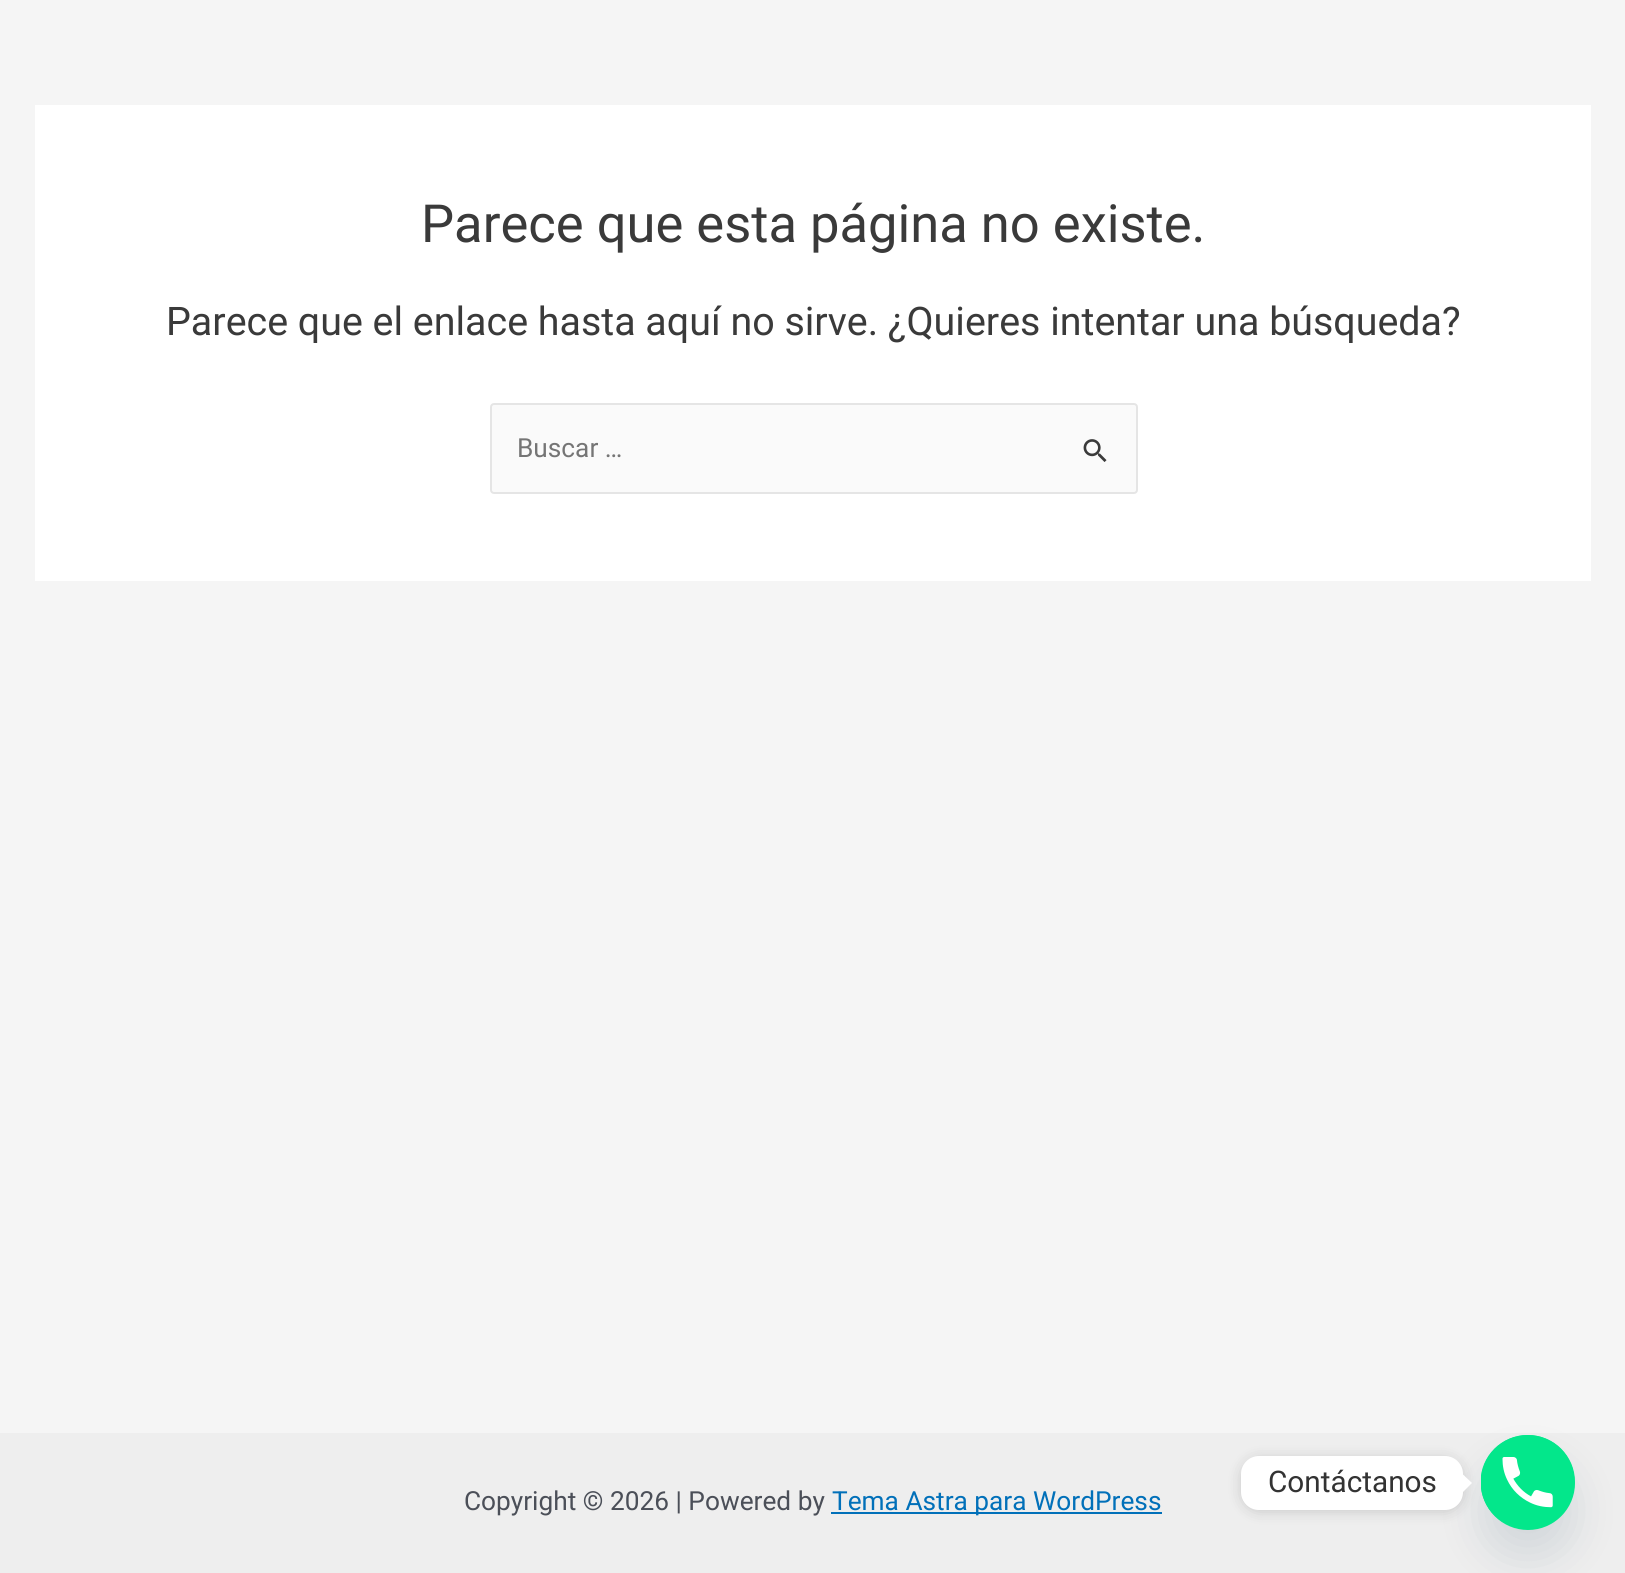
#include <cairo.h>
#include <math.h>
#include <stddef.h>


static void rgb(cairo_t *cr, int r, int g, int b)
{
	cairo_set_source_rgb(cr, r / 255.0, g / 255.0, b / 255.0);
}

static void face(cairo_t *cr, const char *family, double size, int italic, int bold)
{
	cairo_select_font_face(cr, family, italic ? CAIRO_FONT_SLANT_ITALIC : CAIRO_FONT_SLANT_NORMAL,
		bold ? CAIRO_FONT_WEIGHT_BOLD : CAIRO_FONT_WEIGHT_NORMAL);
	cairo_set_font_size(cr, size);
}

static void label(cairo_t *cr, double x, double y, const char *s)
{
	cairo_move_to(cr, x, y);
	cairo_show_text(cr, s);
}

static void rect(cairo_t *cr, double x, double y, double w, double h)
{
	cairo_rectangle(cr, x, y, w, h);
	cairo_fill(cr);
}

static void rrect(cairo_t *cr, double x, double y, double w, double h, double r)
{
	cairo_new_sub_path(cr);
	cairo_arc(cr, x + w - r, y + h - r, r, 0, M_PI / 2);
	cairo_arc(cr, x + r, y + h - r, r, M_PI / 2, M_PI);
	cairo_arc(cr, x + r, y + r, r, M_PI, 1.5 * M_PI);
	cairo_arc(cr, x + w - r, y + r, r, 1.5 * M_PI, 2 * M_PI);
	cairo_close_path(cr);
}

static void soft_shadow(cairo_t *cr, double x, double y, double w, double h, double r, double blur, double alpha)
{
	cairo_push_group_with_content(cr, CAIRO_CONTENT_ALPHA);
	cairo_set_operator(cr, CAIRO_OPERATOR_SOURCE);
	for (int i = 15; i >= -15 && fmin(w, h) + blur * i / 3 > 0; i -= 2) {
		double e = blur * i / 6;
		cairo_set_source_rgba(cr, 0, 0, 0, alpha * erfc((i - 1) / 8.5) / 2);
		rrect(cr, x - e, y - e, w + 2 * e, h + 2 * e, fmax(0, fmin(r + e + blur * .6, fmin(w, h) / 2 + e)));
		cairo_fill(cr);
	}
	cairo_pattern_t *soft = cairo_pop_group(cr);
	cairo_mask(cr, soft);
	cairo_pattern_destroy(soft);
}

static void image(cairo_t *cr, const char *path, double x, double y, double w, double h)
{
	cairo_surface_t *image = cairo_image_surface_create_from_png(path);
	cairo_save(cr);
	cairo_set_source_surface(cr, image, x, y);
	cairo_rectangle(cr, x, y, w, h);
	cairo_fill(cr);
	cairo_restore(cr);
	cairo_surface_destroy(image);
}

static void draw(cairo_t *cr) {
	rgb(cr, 245, 245, 245);
	cairo_paint(cr);
	rgb(cr, 255, 255, 255);
	rect(cr, 35, 105, 1556, 476);
	face(cr, "Roboto", 52.5, 0, 0);
	rgb(cr, 58, 58, 58);
	label(cr, 421, 242, "Parece que esta página no existe.");
	face(cr, "Roboto", 39.4, 0, 0);
	label(cr, 166, 335, "Parece que el enlace hasta aquí no sirve. ¿Quieres intentar una búsqueda?");
	rgb(cr, 250, 250, 250);
	rrect(cr, 491, 404, 646, 89, 3);
	cairo_fill_preserve(cr);
	rgb(cr, 229, 229, 229);
	cairo_stroke(cr);
	face(cr, "Roboto", 26.25, 0, 0);
	rgb(cr, 117, 117, 117);
	label(cr, 517, 457, "Buscar …");
	image(cr, "image0.png", 1083, 439, 24, 23);
	rgb(cr, 238, 238, 238);
	rect(cr, 0, 1433, 1625, 140);
	rgb(cr, 75, 79, 88);
	label(cr, 464, 1510, "Copyright © 2026 | Powered by");
	rgb(cr, 1, 112, 185);
	rect(cr, 831, 1512, 331, 2);
	label(cr, 832, 1510, "Tema Astra para WordPress");
	rgb(cr, 73, 104, 126);
	soft_shadow(cr, 1481, 1463, 94, 95, 47, 21, 0.16);
	rgb(cr, 3, 231, 139);
	rrect(cr, 1481, 1435, 94, 95, 47);
	cairo_fill(cr);
	image(cr, "image1.png", 1481, 1435, 94, 89);
	rgb(cr, 0, 0, 0);
	soft_shadow(cr, 1241, 1458, 222, 54, 18, 7, 0.15);
	rgb(cr, 255, 255, 255);
	rrect(cr, 1241, 1456, 222, 54, 18);
	cairo_fill(cr);
	face(cr, "Roboto", 29.75, 0, 0);
	rgb(cr, 51, 51, 51);
	label(cr, 1268, 1492, "Contáctanos");
	rgb(cr, 255, 255, 255);
	cairo_new_path(cr);
	cairo_move_to(cr, 1463, 1492);
	cairo_line_to(cr, 1463, 1474.5);
	cairo_line_to(cr, 1472, 1483);
	cairo_close_path(cr);
	cairo_fill(cr);
}

int main(void) {
	cairo_surface_t *surface = cairo_image_surface_create(CAIRO_FORMAT_RGB24, 1625, 1573);
	cairo_t *cr = cairo_create(surface);
	cairo_font_options_t *options = cairo_font_options_create();
	cairo_font_options_set_hint_metrics(options, CAIRO_HINT_METRICS_OFF);
	cairo_font_options_set_hint_style(options, CAIRO_HINT_STYLE_NONE);
	cairo_set_font_options(cr, options);
	cairo_set_miter_limit(cr, 4);
	draw(cr);
	cairo_surface_write_to_png(surface, "render.png");
	cairo_font_options_destroy(options);
	cairo_destroy(cr);
	cairo_surface_destroy(surface);
	return 0;
}
